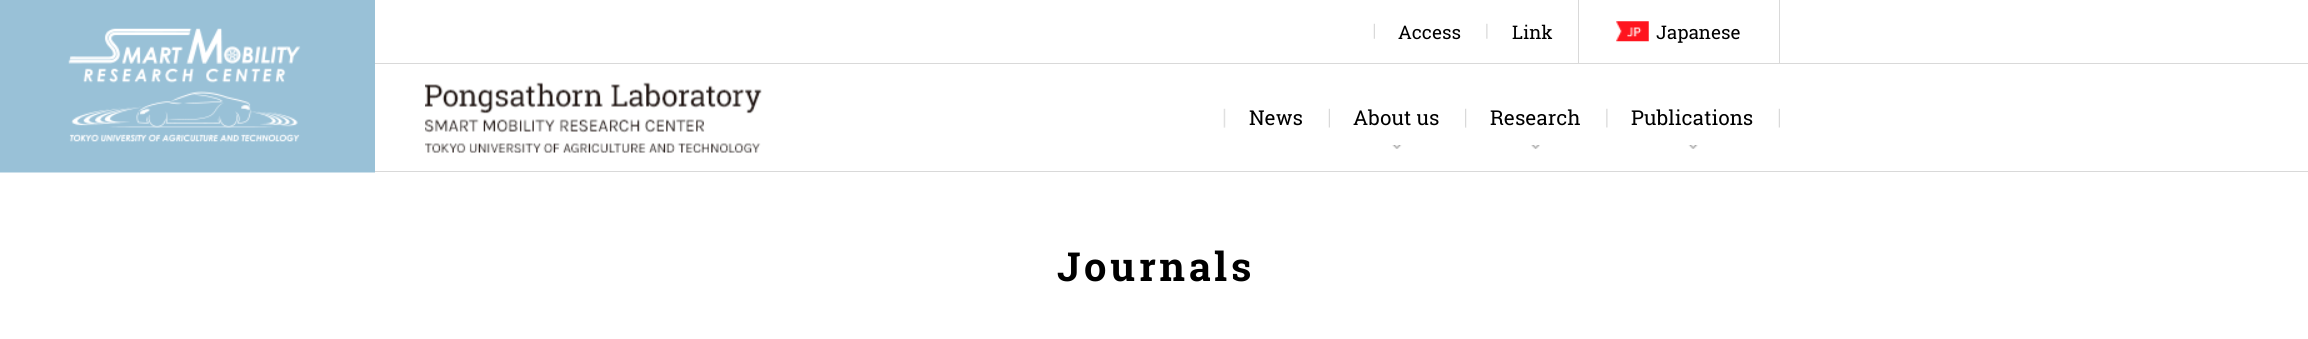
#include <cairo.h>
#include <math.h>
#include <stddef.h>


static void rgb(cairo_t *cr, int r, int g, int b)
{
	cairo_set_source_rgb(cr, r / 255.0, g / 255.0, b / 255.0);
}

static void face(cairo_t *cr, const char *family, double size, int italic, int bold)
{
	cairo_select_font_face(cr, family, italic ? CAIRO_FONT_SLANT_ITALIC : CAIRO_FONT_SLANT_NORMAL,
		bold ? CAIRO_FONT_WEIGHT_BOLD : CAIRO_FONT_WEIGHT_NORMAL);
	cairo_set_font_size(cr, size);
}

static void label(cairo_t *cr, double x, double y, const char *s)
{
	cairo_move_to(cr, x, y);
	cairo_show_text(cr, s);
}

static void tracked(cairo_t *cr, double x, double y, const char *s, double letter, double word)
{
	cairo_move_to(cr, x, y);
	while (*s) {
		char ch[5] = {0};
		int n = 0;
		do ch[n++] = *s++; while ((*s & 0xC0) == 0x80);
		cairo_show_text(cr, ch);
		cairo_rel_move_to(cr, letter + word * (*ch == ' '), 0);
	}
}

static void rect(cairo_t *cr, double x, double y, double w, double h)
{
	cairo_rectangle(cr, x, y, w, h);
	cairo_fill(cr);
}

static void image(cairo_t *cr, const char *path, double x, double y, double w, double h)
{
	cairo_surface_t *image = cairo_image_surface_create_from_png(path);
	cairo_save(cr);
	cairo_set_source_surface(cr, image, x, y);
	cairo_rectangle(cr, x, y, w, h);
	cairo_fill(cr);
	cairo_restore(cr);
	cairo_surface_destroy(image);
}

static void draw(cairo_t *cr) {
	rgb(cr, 255, 255, 255);
	cairo_paint(cr);
	image(cr, "image0.png", 0, 0, 375, 173);
	image(cr, "image1.png", 1373, 23, 2, 16);
	face(cr, "Roboto Slab", 18.75, 0, 0);
	rgb(cr, 0, 0, 0);
	label(cr, 1398, 39, "Access");
	image(cr, "image2.png", 1486, 23, 2, 16);
	label(cr, 1512, 39, "Link");
	rgb(cr, 217, 217, 217);
	rect(cr, 1779, 0, 1, 63);
	rect(cr, 1578, 0, 1, 63);
	image(cr, "image3.png", 1616, 21, 33, 21);
	rgb(cr, 0, 0, 0);
	label(cr, 1656, 39, "Japanese");
	image(cr, "image4.png", 425, 82, 337, 71);
	rgb(cr, 217, 217, 217);
	rect(cr, 375, 63, 1933, 1);
	rect(cr, 375, 171, 1933, 1);
	image(cr, "image5.png", 1223, 108, 3, 20);
	face(cr, "Roboto Slab", 20.5, 0, 0);
	rgb(cr, 0, 0, 0);
	label(cr, 1249, 125, "News");
	image(cr, "image6.png", 1328, 108, 2, 20);
	image(cr, "image7.png", 1392, 145, 10, 4);
	label(cr, 1353, 125, "About us");
	image(cr, "image8.png", 1465, 108, 2, 20);
	image(cr, "image9.png", 1531, 145, 9, 4);
	label(cr, 1490, 125, "Research");
	image(cr, "image10.png", 1606, 108, 174, 20);
	image(cr, "image11.png", 1688, 145, 10, 4);
	label(cr, 1631, 125, "Publications");
	face(cr, "Roboto Slab", 40, 0, 1);
	tracked(cr, 1057, 281, "Journals", 3.75, 0);
}

int main(void) {
	cairo_surface_t *surface = cairo_image_surface_create(CAIRO_FORMAT_RGB24, 2308, 339);
	cairo_t *cr = cairo_create(surface);
	cairo_font_options_t *options = cairo_font_options_create();
	cairo_font_options_set_hint_metrics(options, CAIRO_HINT_METRICS_OFF);
	cairo_font_options_set_hint_style(options, CAIRO_HINT_STYLE_NONE);
	cairo_set_font_options(cr, options);
	cairo_set_miter_limit(cr, 4);
	draw(cr);
	cairo_surface_write_to_png(surface, "render.png");
	cairo_font_options_destroy(options);
	cairo_destroy(cr);
	cairo_surface_destroy(surface);
	return 0;
}
